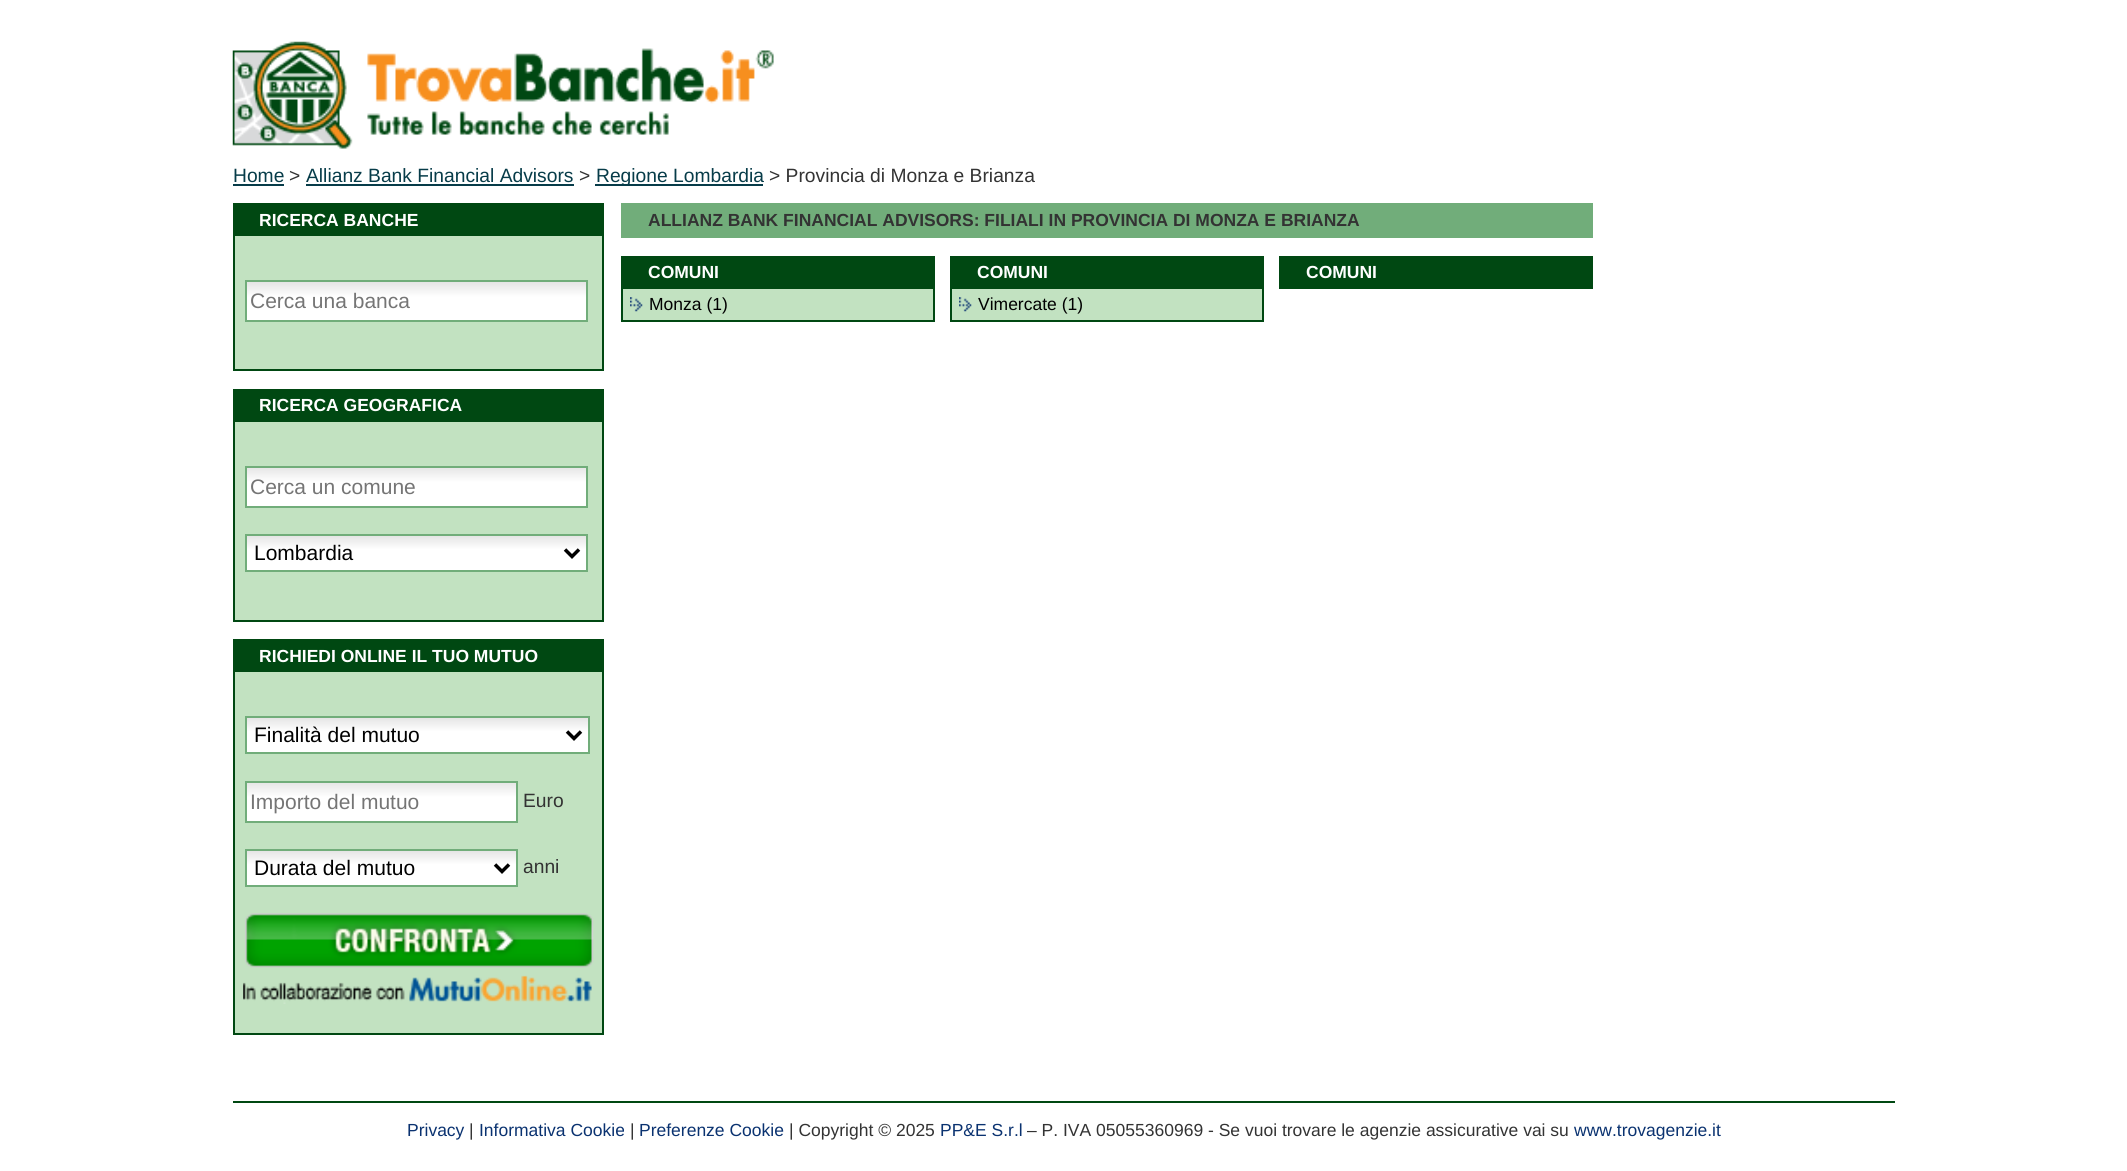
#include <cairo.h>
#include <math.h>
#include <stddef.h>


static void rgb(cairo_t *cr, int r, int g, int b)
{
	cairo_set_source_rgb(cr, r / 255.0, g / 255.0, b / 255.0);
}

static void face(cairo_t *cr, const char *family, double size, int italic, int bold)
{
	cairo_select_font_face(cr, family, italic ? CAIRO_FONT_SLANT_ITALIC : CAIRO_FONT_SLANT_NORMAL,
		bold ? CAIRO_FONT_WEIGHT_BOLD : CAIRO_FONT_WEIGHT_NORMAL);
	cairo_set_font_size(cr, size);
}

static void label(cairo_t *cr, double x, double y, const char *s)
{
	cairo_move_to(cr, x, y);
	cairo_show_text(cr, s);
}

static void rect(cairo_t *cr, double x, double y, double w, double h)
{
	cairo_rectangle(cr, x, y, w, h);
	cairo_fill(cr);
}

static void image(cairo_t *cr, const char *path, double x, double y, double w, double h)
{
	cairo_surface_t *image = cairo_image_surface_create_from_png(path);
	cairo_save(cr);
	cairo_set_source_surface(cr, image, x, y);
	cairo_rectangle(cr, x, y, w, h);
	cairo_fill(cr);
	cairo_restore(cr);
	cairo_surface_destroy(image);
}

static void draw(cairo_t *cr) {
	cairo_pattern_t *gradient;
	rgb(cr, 255, 255, 255);
	cairo_paint(cr);
	image(cr, "image0.png", 232, 41, 542, 108);
	face(cr, "Liberation Sans", 19.25, 0, 0);
	rgb(cr, 7, 60, 73);
	label(cr, 233, 182, "Home");
	rect(cr, 233, 184, 51, 2);
	rgb(cr, 51, 51, 51);
	label(cr, 289, 182, ">");
	rgb(cr, 7, 60, 73);
	label(cr, 306, 182, "Allianz Bank Financial Advisors");
	rect(cr, 306, 184, 268, 2);
	rgb(cr, 51, 51, 51);
	label(cr, 579, 182, ">");
	rgb(cr, 7, 60, 73);
	rect(cr, 595, 184, 168, 2);
	label(cr, 596, 182, "Regione Lombardia");
	rgb(cr, 51, 51, 51);
	label(cr, 769, 182, "> Provincia di Monza e Brianza");
	rgb(cr, 0, 72, 18);
	rect(cr, 233, 203, 371, 33);
	face(cr, "Liberation Sans", 17.5, 0, 1);
	rgb(cr, 255, 255, 255);
	label(cr, 259, 226, "RICERCA BANCHE");
	rgb(cr, 194, 226, 193);
	rect(cr, 235, 236, 367, 133);
	rgb(cr, 0, 72, 18);
	rect(cr, 602, 236, 2, 135);
	rect(cr, 233, 369, 371, 2);
	rect(cr, 233, 236, 2, 135);
	gradient = cairo_pattern_create_linear(417, 282, 417, 320);
	cairo_pattern_add_color_stop_rgba(gradient, 0, 0.898, 0.898, 0.898, 1);
	cairo_pattern_add_color_stop_rgba(gradient, 0.39, 1, 1, 1, 1);
	cairo_set_source(cr, gradient);
	cairo_pattern_destroy(gradient);
	rect(cr, 247, 282, 339, 38);
	cairo_rectangle(cr, 246, 281, 341, 40);
	rgb(cr, 113, 173, 122);
	cairo_stroke(cr);
	face(cr, "Liberation Sans", 21, 0, 0);
	rgb(cr, 117, 117, 117);
	label(cr, 250, 308, "Cerca una banca");
	rgb(cr, 0, 72, 18);
	rect(cr, 233, 389, 371, 33);
	face(cr, "Liberation Sans", 17.5, 0, 1);
	rgb(cr, 255, 255, 255);
	label(cr, 259, 411, "RICERCA GEOGRAFICA");
	rgb(cr, 194, 226, 193);
	rect(cr, 235, 422, 367, 198);
	rgb(cr, 0, 72, 18);
	rect(cr, 602, 422, 2, 199);
	rect(cr, 233, 620, 371, 2);
	rect(cr, 233, 422, 2, 199);
	gradient = cairo_pattern_create_linear(417, 467, 417, 506);
	cairo_pattern_add_color_stop_rgba(gradient, 0, 0.898, 0.898, 0.898, 1);
	cairo_pattern_add_color_stop_rgba(gradient, 0.39, 1, 1, 1, 1);
	cairo_set_source(cr, gradient);
	cairo_pattern_destroy(gradient);
	rect(cr, 247, 468, 339, 38);
	cairo_rectangle(cr, 246, 467, 341, 40);
	rgb(cr, 113, 173, 122);
	cairo_stroke(cr);
	face(cr, "Liberation Sans", 21, 0, 0);
	rgb(cr, 117, 117, 117);
	label(cr, 250, 494, "Cerca un comune");
	gradient = cairo_pattern_create_linear(417, 536, 417, 571);
	cairo_pattern_add_color_stop_rgba(gradient, 0, 0.898, 0.898, 0.898, 1);
	cairo_pattern_add_color_stop_rgba(gradient, 0.39, 1, 1, 1, 1);
	cairo_set_source(cr, gradient);
	cairo_pattern_destroy(gradient);
	rect(cr, 247, 536, 339, 34);
	cairo_rectangle(cr, 246, 535, 341, 36);
	rgb(cr, 113, 173, 122);
	cairo_stroke(cr);
	cairo_new_path(cr);
	cairo_move_to(cr, 565, 549.5);
	cairo_line_to(cr, 572, 556.5);
	cairo_line_to(cr, 579, 549.5);
	rgb(cr, 0, 0, 0);
	cairo_set_line_width(cr, 3.5);
	cairo_stroke(cr);
	label(cr, 254, 560, "Lombardia");
	rgb(cr, 0, 72, 18);
	rect(cr, 233, 639, 371, 33);
	face(cr, "Liberation Sans", 17.5, 0, 1);
	rgb(cr, 255, 255, 255);
	label(cr, 259, 662, "RICHIEDI ONLINE IL TUO MUTUO");
	rgb(cr, 194, 226, 193);
	rect(cr, 235, 672, 367, 361);
	rgb(cr, 0, 72, 18);
	rect(cr, 602, 672, 2, 362);
	rect(cr, 233, 1033, 371, 2);
	rect(cr, 233, 672, 2, 362);
	gradient = cairo_pattern_create_linear(417, 718, 417, 753);
	cairo_pattern_add_color_stop_rgba(gradient, 0, 0.898, 0.898, 0.898, 1);
	cairo_pattern_add_color_stop_rgba(gradient, 0.39, 1, 1, 1, 1);
	cairo_set_source(cr, gradient);
	cairo_pattern_destroy(gradient);
	rect(cr, 247, 718, 341, 34);
	cairo_rectangle(cr, 246, 717, 343, 36);
	rgb(cr, 113, 173, 122);
	cairo_set_line_width(cr, 2);
	cairo_stroke(cr);
	cairo_new_path(cr);
	cairo_move_to(cr, 567, 731.5);
	cairo_line_to(cr, 574, 738.5);
	cairo_line_to(cr, 581, 731.5);
	rgb(cr, 0, 0, 0);
	cairo_set_line_width(cr, 3.5);
	cairo_stroke(cr);
	face(cr, "Liberation Sans", 21, 0, 0);
	label(cr, 254, 742, "Finalità del mutuo");
	gradient = cairo_pattern_create_linear(382, 782, 382, 821);
	cairo_pattern_add_color_stop_rgba(gradient, 0, 0.898, 0.898, 0.898, 1);
	cairo_pattern_add_color_stop_rgba(gradient, 0.39, 1, 1, 1, 1);
	cairo_set_source(cr, gradient);
	cairo_pattern_destroy(gradient);
	rect(cr, 247, 783, 269, 38);
	cairo_rectangle(cr, 246, 782, 271, 40);
	rgb(cr, 113, 173, 122);
	cairo_set_line_width(cr, 2);
	cairo_stroke(cr);
	rgb(cr, 117, 117, 117);
	label(cr, 250, 809, "Importo del mutuo");
	face(cr, "Liberation Sans", 19.25, 0, 0);
	rgb(cr, 51, 51, 51);
	label(cr, 523, 807, "Euro");
	gradient = cairo_pattern_create_linear(382, 851, 382, 886);
	cairo_pattern_add_color_stop_rgba(gradient, 0, 0.898, 0.898, 0.898, 1);
	cairo_pattern_add_color_stop_rgba(gradient, 0.39, 1, 1, 1, 1);
	cairo_set_source(cr, gradient);
	cairo_pattern_destroy(gradient);
	rect(cr, 247, 851, 269, 34);
	cairo_rectangle(cr, 246, 850, 271, 36);
	rgb(cr, 113, 173, 122);
	cairo_stroke(cr);
	cairo_new_path(cr);
	cairo_move_to(cr, 495, 864.5);
	cairo_line_to(cr, 502, 871.5);
	cairo_line_to(cr, 509, 864.5);
	rgb(cr, 0, 0, 0);
	cairo_set_line_width(cr, 3.5);
	cairo_stroke(cr);
	face(cr, "Liberation Sans", 21, 0, 0);
	label(cr, 254, 875, "Durata del mutuo");
	face(cr, "Liberation Sans", 19.25, 0, 0);
	rgb(cr, 51, 51, 51);
	label(cr, 523, 873, "anni");
	image(cr, "image1.png", 245, 913, 349, 55);
	image(cr, "image2.png", 243, 975, 349, 29);
	rgb(cr, 113, 173, 122);
	rect(cr, 621, 203, 972, 35);
	face(cr, "Liberation Sans", 17.5, 0, 1);
	rgb(cr, 51, 51, 51);
	label(cr, 648, 226, "ALLIANZ BANK FINANCIAL ADVISORS: FILIALI IN PROVINCIA DI MONZA E BRIANZA");
	rgb(cr, 0, 72, 18);
	rect(cr, 621, 256, 314, 33);
	rgb(cr, 255, 255, 255);
	label(cr, 648, 278, "COMUNI");
	rgb(cr, 194, 226, 193);
	rect(cr, 623, 289, 310, 31);
	image(cr, "image3.png", 630, 297, 13, 15);
	rgb(cr, 0, 72, 18);
	rect(cr, 933, 289, 2, 33);
	rect(cr, 621, 320, 314, 2);
	rect(cr, 621, 289, 2, 33);
	face(cr, "Liberation Sans", 17.5, 0, 0);
	rgb(cr, 0, 0, 0);
	label(cr, 649, 310, "Monza (1)");
	rgb(cr, 0, 72, 18);
	rect(cr, 950, 256, 314, 33);
	face(cr, "Liberation Sans", 17.5, 0, 1);
	rgb(cr, 255, 255, 255);
	label(cr, 977, 278, "COMUNI");
	rgb(cr, 194, 226, 193);
	rect(cr, 952, 289, 310, 31);
	image(cr, "image3.png", 959, 297, 13, 15);
	rgb(cr, 0, 72, 18);
	rect(cr, 1262, 289, 2, 33);
	rect(cr, 950, 320, 314, 2);
	rect(cr, 950, 289, 2, 33);
	face(cr, "Liberation Sans", 17.5, 0, 0);
	rgb(cr, 0, 0, 0);
	label(cr, 978, 310, "Vimercate (1)");
	rgb(cr, 0, 72, 18);
	rect(cr, 1279, 256, 314, 33);
	face(cr, "Liberation Sans", 17.5, 0, 1);
	rgb(cr, 255, 255, 255);
	label(cr, 1306, 278, "COMUNI");
	rgb(cr, 0, 72, 18);
	rect(cr, 233, 1101, 1662, 2);
	face(cr, "Liberation Sans", 17.5, 0, 0);
	rgb(cr, 10, 50, 112);
	label(cr, 407, 1136, "Privacy");
	rgb(cr, 51, 51, 51);
	label(cr, 469, 1136, "|");
	rgb(cr, 10, 50, 112);
	label(cr, 479, 1136, "Informativa Cookie");
	rgb(cr, 51, 51, 51);
	label(cr, 630, 1136, "|");
	rgb(cr, 10, 50, 112);
	label(cr, 639, 1136, "Preferenze Cookie");
	rgb(cr, 51, 51, 51);
	label(cr, 789, 1136, "| Copyright © 2025");
	rgb(cr, 10, 50, 112);
	label(cr, 940, 1136, "PP&E S.r.l");
	rgb(cr, 51, 51, 51);
	label(cr, 1027, 1136, "– P. IVA 05055360969 - Se vuoi trovare le agenzie assicurative vai su");
	rgb(cr, 10, 50, 112);
	label(cr, 1574, 1136, "www.trovagenzie.it");
}

int main(void) {
	cairo_surface_t *surface = cairo_image_surface_create(CAIRO_FORMAT_RGB24, 2127, 1171);
	cairo_t *cr = cairo_create(surface);
	cairo_font_options_t *options = cairo_font_options_create();
	cairo_font_options_set_hint_metrics(options, CAIRO_HINT_METRICS_OFF);
	cairo_font_options_set_hint_style(options, CAIRO_HINT_STYLE_NONE);
	cairo_set_font_options(cr, options);
	cairo_set_miter_limit(cr, 4);
	draw(cr);
	cairo_surface_write_to_png(surface, "render.png");
	cairo_font_options_destroy(options);
	cairo_destroy(cr);
	cairo_surface_destroy(surface);
	return 0;
}
